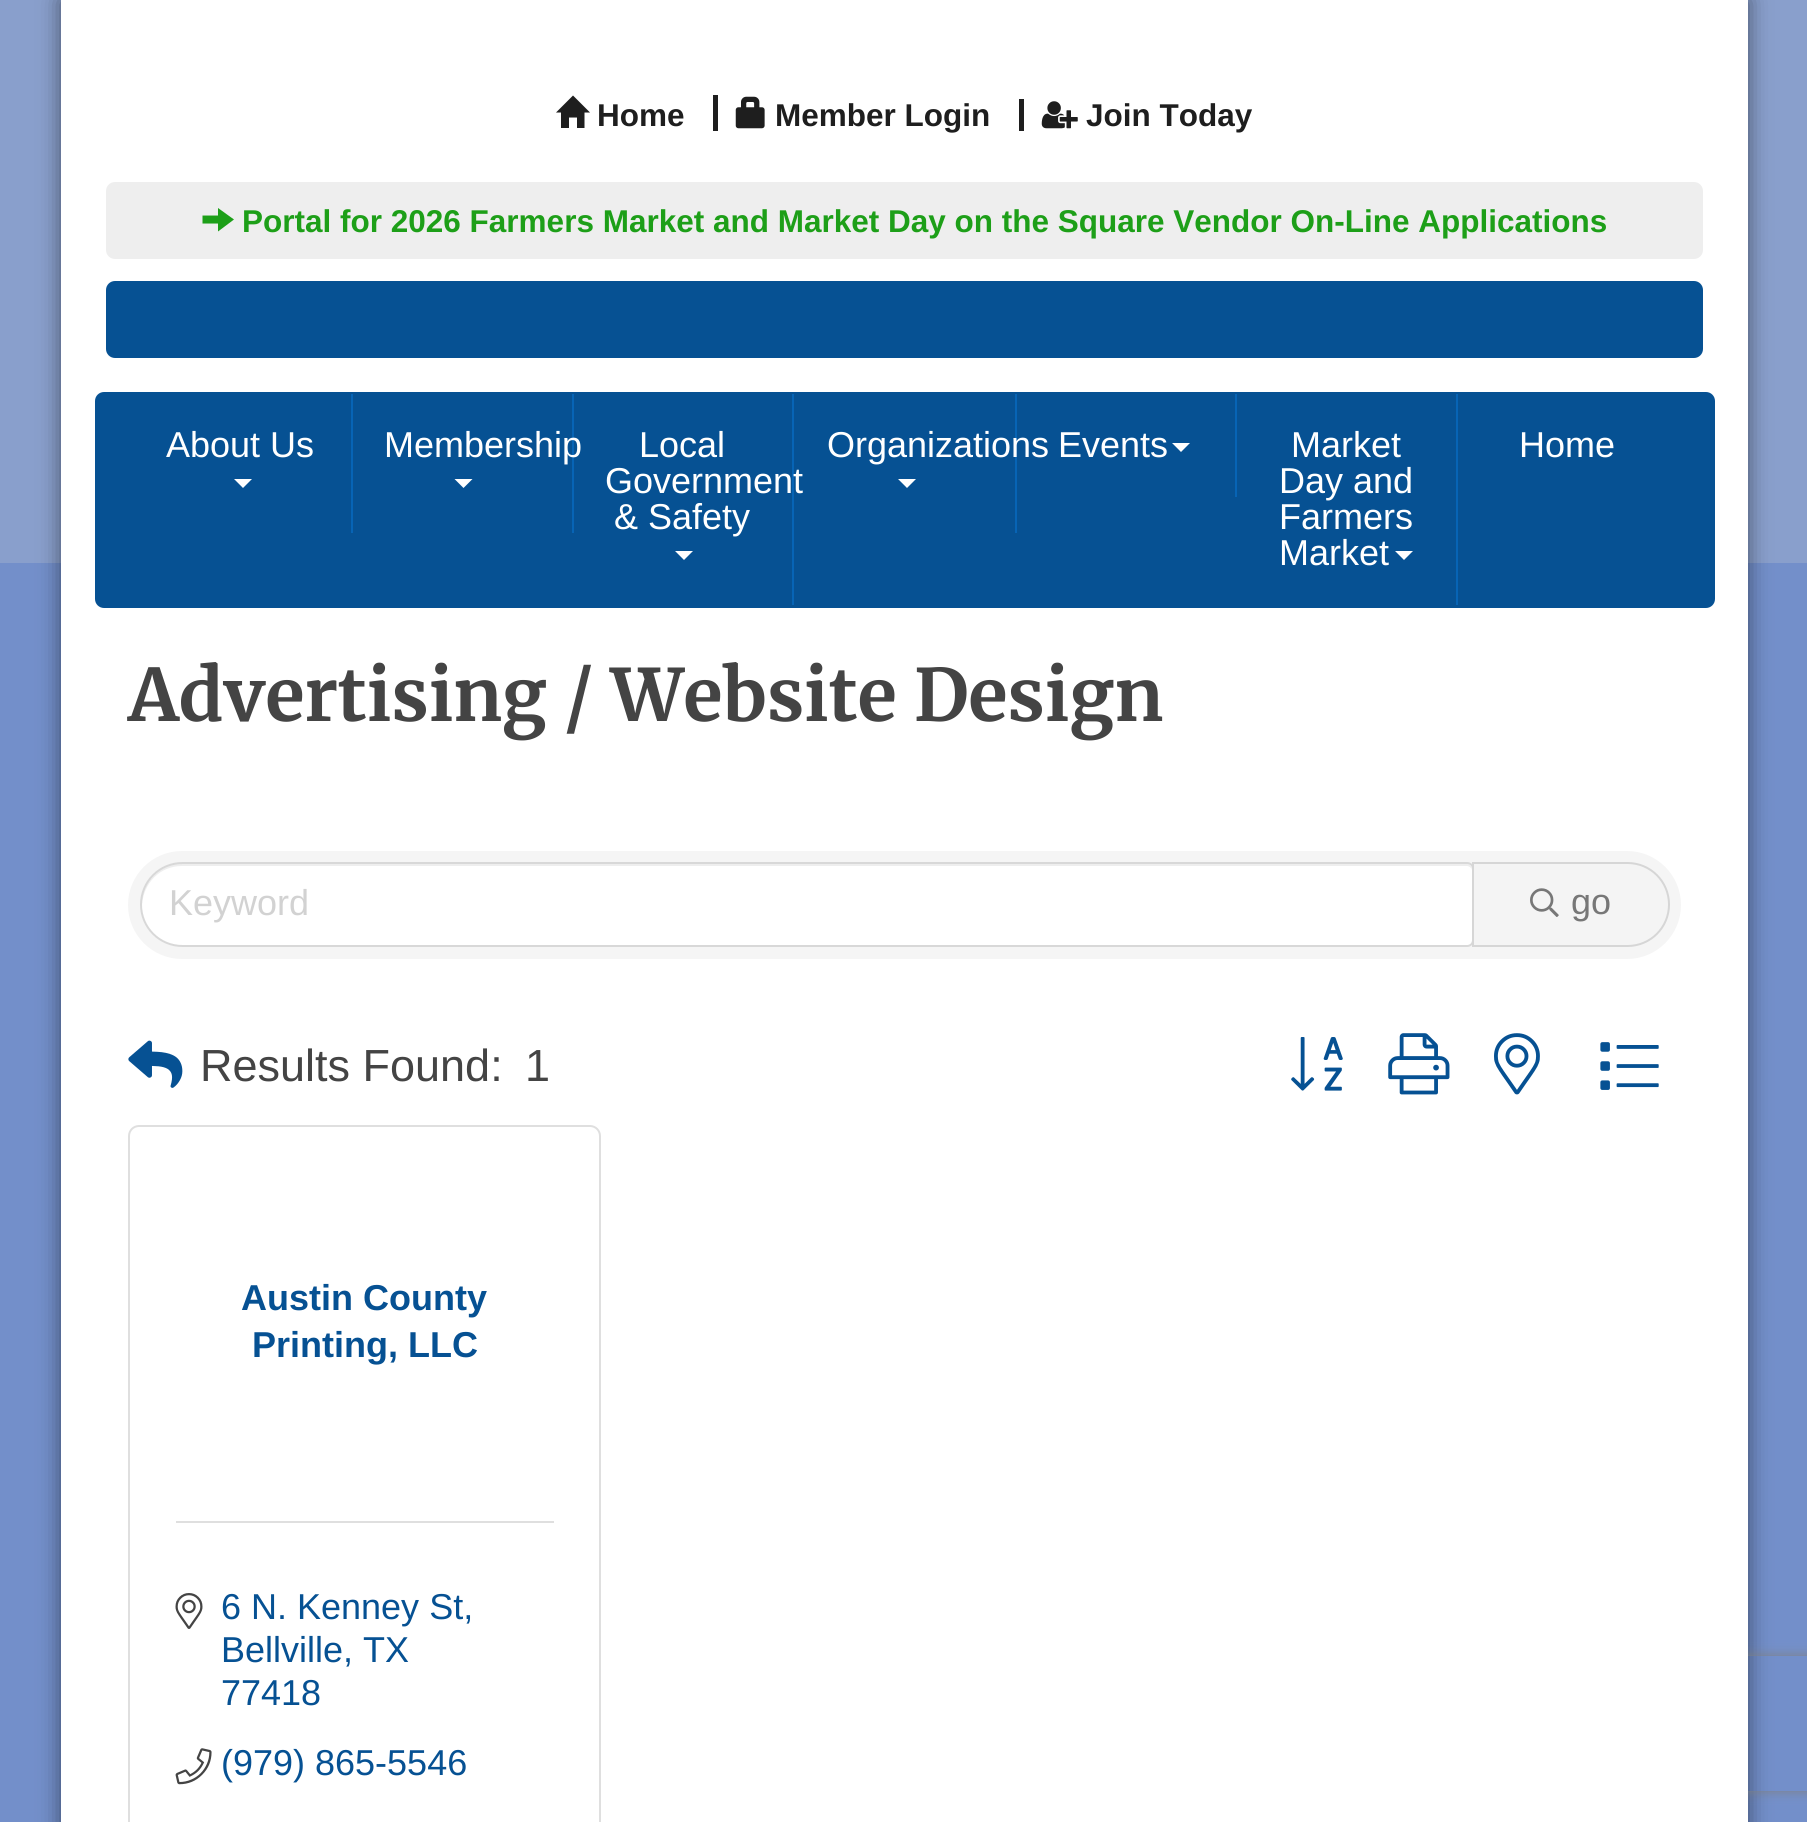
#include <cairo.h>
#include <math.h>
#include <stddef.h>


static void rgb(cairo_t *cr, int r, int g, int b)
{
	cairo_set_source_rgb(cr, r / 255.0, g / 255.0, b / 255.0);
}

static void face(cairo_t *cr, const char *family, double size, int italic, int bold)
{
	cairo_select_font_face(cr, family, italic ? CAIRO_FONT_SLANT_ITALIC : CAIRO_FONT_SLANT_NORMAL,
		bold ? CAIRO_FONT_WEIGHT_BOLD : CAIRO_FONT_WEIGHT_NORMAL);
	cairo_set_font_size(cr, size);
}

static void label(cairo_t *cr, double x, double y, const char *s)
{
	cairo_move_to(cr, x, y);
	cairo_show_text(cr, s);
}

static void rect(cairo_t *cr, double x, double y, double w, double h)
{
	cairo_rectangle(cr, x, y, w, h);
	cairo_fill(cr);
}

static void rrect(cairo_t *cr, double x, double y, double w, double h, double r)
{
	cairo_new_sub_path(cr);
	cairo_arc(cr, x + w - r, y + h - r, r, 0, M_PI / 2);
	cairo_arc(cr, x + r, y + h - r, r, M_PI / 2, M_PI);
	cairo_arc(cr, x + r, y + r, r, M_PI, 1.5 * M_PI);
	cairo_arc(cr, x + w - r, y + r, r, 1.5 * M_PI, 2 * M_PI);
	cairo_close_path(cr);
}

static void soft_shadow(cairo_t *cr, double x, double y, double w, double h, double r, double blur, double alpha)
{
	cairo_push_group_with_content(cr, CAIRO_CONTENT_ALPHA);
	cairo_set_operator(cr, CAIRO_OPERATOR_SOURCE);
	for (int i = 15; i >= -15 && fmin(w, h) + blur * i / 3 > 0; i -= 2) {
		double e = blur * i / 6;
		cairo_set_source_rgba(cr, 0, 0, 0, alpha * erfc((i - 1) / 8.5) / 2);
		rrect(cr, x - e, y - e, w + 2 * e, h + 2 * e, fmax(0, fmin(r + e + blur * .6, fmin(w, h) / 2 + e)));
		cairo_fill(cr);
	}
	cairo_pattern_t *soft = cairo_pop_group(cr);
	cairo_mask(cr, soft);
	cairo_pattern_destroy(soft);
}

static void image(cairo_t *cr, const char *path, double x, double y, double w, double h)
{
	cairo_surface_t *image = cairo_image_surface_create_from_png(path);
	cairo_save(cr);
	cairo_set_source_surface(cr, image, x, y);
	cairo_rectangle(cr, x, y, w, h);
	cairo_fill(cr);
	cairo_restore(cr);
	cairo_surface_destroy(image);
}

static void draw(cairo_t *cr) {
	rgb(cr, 115, 143, 202);
	cairo_paint(cr);
	rgb(cr, 137, 159, 204);
	rect(cr, 0, 0, 1807, 563);
	rgb(cr, 0, 0, 0);
	soft_shadow(cr, 61, 0, 1687, 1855, 0, 11, 0.5);
	cairo_save(cr);
	cairo_set_fill_rule(cr, CAIRO_FILL_RULE_EVEN_ODD);
	cairo_new_path(cr);
	cairo_move_to(cr, 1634, 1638);
	cairo_line_to(cr, 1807, 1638);
	cairo_line_to(cr, 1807, 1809);
	cairo_line_to(cr, 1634, 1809);
	cairo_close_path(cr);
	cairo_move_to(cr, 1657, 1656);
	cairo_line_to(cr, 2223, 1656);
	cairo_curve_to(cr, 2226, 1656, 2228, 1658, 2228, 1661);
	cairo_line_to(cr, 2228, 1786);
	cairo_curve_to(cr, 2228, 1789, 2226, 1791, 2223, 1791);
	cairo_line_to(cr, 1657, 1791);
	cairo_curve_to(cr, 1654, 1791, 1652, 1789, 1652, 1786);
	cairo_line_to(cr, 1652, 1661);
	cairo_curve_to(cr, 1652, 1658, 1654, 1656, 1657, 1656);
	cairo_close_path(cr);
	cairo_clip(cr);
	rgb(cr, 128, 128, 128);
	soft_shadow(cr, 1652, 1656, 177, 135, 5, 5.5, 1);
	cairo_restore(cr);
	rgb(cr, 255, 255, 255);
	rect(cr, 61, 0, 1687, 1822);
	rgb(cr, 30, 30, 30);
	cairo_new_path(cr);
	cairo_move_to(cr, 556, 112.5);
	cairo_line_to(cr, 573, 95.5);
	cairo_line_to(cr, 590, 112.5);
	cairo_line_to(cr, 584.5, 112.5);
	cairo_line_to(cr, 584.5, 128);
	cairo_line_to(cr, 577, 128);
	cairo_line_to(cr, 577, 117.5);
	cairo_line_to(cr, 569, 117.5);
	cairo_line_to(cr, 569, 128);
	cairo_line_to(cr, 561, 128);
	cairo_line_to(cr, 561, 112.5);
	cairo_close_path(cr);
	cairo_fill(cr);
	face(cr, "Liberation Sans", 31.5, 0, 1);
	label(cr, 597, 126, "Home");
	rect(cr, 713, 95, 5, 36);
	image(cr, "image0.png", 735, 96, 30, 33);
	label(cr, 775, 126, "Member Login");
	rect(cr, 1019, 99, 5, 32);
	image(cr, "image1.png", 1041, 101, 37, 28);
	label(cr, 1086, 126, "Join Today");
	rgb(cr, 238, 238, 238);
	rrect(cr, 106, 182, 1597, 77, 9);
	cairo_fill(cr);
	rgb(cr, 29, 159, 24);
	cairo_new_path(cr);
	cairo_move_to(cr, 202.5, 223.5);
	cairo_line_to(cr, 202.5, 215.5);
	cairo_line_to(cr, 218, 215.5);
	cairo_line_to(cr, 218, 208);
	cairo_line_to(cr, 234, 219.5);
	cairo_line_to(cr, 218, 231.5);
	cairo_line_to(cr, 218, 223.5);
	cairo_close_path(cr);
	cairo_fill(cr);
	label(cr, 242, 232, "Portal for 2026 Farmers Market and Market Day on the Square Vendor On-Line Applications");
	rgb(cr, 6, 81, 147);
	rrect(cr, 106, 281, 1597, 77, 9);
	cairo_fill(cr);
	rrect(cr, 96, 393, 1618, 214, 8);
	cairo_fill_preserve(cr);
	cairo_stroke(cr);
	rgb(cr, 7, 100, 181);
	rect(cr, 351, 394, 2, 139);
	face(cr, "Liberation Sans", 36, 0, 0);
	rgb(cr, 255, 255, 255);
	label(cr, 166, 457, "About Us");
	cairo_new_path(cr);
	cairo_move_to(cr, 234, 479);
	cairo_line_to(cr, 252, 479);
	cairo_line_to(cr, 243, 488);
	cairo_close_path(cr);
	cairo_fill(cr);
	rgb(cr, 7, 100, 181);
	rect(cr, 572, 394, 2, 139);
	rgb(cr, 255, 255, 255);
	label(cr, 384, 457, "Membership");
	cairo_new_path(cr);
	cairo_move_to(cr, 454.5, 479);
	cairo_line_to(cr, 472.5, 479);
	cairo_line_to(cr, 463.5, 488);
	cairo_close_path(cr);
	cairo_fill(cr);
	rgb(cr, 7, 100, 181);
	rect(cr, 792, 394, 2, 211);
	rgb(cr, 255, 255, 255);
	label(cr, 639, 457, "Local");
	label(cr, 605, 493, "Government");
	label(cr, 614, 529, "& Safety");
	cairo_new_path(cr);
	cairo_move_to(cr, 675, 551);
	cairo_line_to(cr, 693, 551);
	cairo_line_to(cr, 684, 560);
	cairo_close_path(cr);
	cairo_fill(cr);
	rgb(cr, 7, 100, 181);
	rect(cr, 1015, 394, 2, 139);
	rgb(cr, 255, 255, 255);
	label(cr, 827, 457, "Organizations");
	cairo_new_path(cr);
	cairo_move_to(cr, 898, 479);
	cairo_line_to(cr, 916, 479);
	cairo_line_to(cr, 907, 488);
	cairo_close_path(cr);
	cairo_fill(cr);
	rgb(cr, 7, 100, 181);
	rect(cr, 1235, 394, 2, 103);
	rgb(cr, 255, 255, 255);
	label(cr, 1058, 457, "Events");
	cairo_new_path(cr);
	cairo_move_to(cr, 1172, 443);
	cairo_line_to(cr, 1190, 443);
	cairo_line_to(cr, 1181, 452);
	cairo_close_path(cr);
	cairo_fill(cr);
	rgb(cr, 7, 100, 181);
	rect(cr, 1456, 394, 2, 211);
	rgb(cr, 255, 255, 255);
	label(cr, 1291, 457, "Market");
	label(cr, 1279, 493, "Day and");
	label(cr, 1279, 529, "Farmers");
	label(cr, 1279, 565, "Market");
	cairo_new_path(cr);
	cairo_move_to(cr, 1395, 551);
	cairo_line_to(cr, 1413, 551);
	cairo_line_to(cr, 1404, 560);
	cairo_close_path(cr);
	cairo_fill(cr);
	label(cr, 1519, 457, "Home");
	face(cr, "Merriweather", 72, 0, 1);
	rgb(cr, 68, 68, 68);
	label(cr, 128, 721, "Advertising / Website Design");
	rgb(cr, 245, 245, 245);
	rrect(cr, 128, 851, 1553, 108, 54);
	cairo_fill(cr);
	rgb(cr, 255, 255, 255);
	cairo_new_path(cr);
	cairo_move_to(cr, 182.5, 864);
	cairo_line_to(cr, 1467, 864);
	cairo_curve_to(cr, 1470, 864, 1472, 866, 1472, 869);
	cairo_line_to(cr, 1472, 940);
	cairo_curve_to(cr, 1472, 943, 1470, 945, 1467, 945);
	cairo_line_to(cr, 182.5, 945);
	cairo_curve_to(cr, 160, 945, 142, 927, 142, 904.5);
	cairo_curve_to(cr, 142, 882, 160, 864, 182.5, 864);
	cairo_close_path(cr);
	cairo_fill(cr);
	cairo_set_source_rgba(cr, 0, 0, 0, 0.07);
	cairo_new_path(cr);
	cairo_move_to(cr, 182, 866);
	cairo_line_to(cr, 1467, 866);
	cairo_curve_to(cr, 1469, 866, 1472, 868, 1472, 871);
	cairo_curve_to(cr, 1472, 868, 1471, 864, 1467, 864);
	cairo_line_to(cr, 182, 864);
	cairo_curve_to(cr, 160, 864, 141, 883, 142, 906);
	cairo_curve_to(cr, 143, 883, 160, 866, 182, 866);
	cairo_close_path(cr);
	cairo_fill(cr);
	cairo_new_path(cr);
	cairo_move_to(cr, 182.5, 863);
	cairo_line_to(cr, 1467, 863);
	cairo_curve_to(cr, 1470.5, 863, 1473, 865.5, 1473, 869);
	cairo_line_to(cr, 1473, 940);
	cairo_curve_to(cr, 1473, 943.5, 1470.5, 946, 1467, 946);
	cairo_line_to(cr, 182.5, 946);
	cairo_curve_to(cr, 159.5, 946, 141, 927.5, 141, 904.5);
	cairo_curve_to(cr, 141, 881.5, 159.5, 863, 182.5, 863);
	cairo_close_path(cr);
	cairo_set_source_rgba(cr, 0, 0, 0, 0.12);
	cairo_stroke(cr);
	face(cr, "Liberation Sans", 36, 0, 0);
	rgb(cr, 210, 210, 210);
	label(cr, 169, 915, "Keyword");
	rgb(cr, 244, 244, 244);
	cairo_new_path(cr);
	cairo_move_to(cr, 1473, 863);
	cairo_line_to(cr, 1627.5, 863);
	cairo_curve_to(cr, 1650.5, 863, 1669, 881.5, 1669, 904.5);
	cairo_curve_to(cr, 1669, 927.5, 1650.5, 946, 1627.5, 946);
	cairo_line_to(cr, 1473, 946);
	cairo_close_path(cr);
	cairo_fill_preserve(cr);
	rgb(cr, 214, 214, 214);
	cairo_stroke(cr);
	image(cr, "image2.png", 1530, 888, 29, 29);
	rgb(cr, 119, 119, 119);
	label(cr, 1571, 914, "go");
	image(cr, "image3.png", 128, 1040, 55, 48);
	face(cr, "Liberation Sans", 45, 0, 0);
	rgb(cr, 68, 68, 68);
	label(cr, 200, 1081, "Results Found:");
	label(cr, 525, 1081, "1");
	image(cr, "image4.png", 1291, 1037, 52, 54);
	image(cr, "image5.png", 1388, 1033, 62, 62);
	image(cr, "image6.png", 1494, 1033, 46, 62);
	image(cr, "image7.png", 1600, 1042, 59, 48);
	rrect(cr, 129, 1126, 471, 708, 10);
	rgb(cr, 223, 223, 223);
	cairo_stroke(cr);
	face(cr, "Liberation Sans", 36, 0, 1);
	rgb(cr, 6, 81, 147);
	label(cr, 241, 1310, "Austin County");
	label(cr, 252, 1357, "Printing, LLC");
	rgb(cr, 223, 223, 223);
	rect(cr, 176, 1521, 378, 2);
	image(cr, "image8.png", 175, 1593, 28, 36);
	face(cr, "Liberation Sans", 36, 0, 0);
	rgb(cr, 6, 81, 147);
	label(cr, 221, 1619, "6 N. Kenney St,");
	label(cr, 221, 1662, "Bellville, TX");
	label(cr, 221, 1705, "77418");
	image(cr, "image9.png", 175, 1748, 37, 37);
	label(cr, 221, 1775, "(979) 865-5546");
}

int main(void) {
	cairo_surface_t *surface = cairo_image_surface_create(CAIRO_FORMAT_RGB24, 1807, 1822);
	cairo_t *cr = cairo_create(surface);
	cairo_font_options_t *options = cairo_font_options_create();
	cairo_font_options_set_hint_metrics(options, CAIRO_HINT_METRICS_OFF);
	cairo_font_options_set_hint_style(options, CAIRO_HINT_STYLE_NONE);
	cairo_set_font_options(cr, options);
	cairo_set_miter_limit(cr, 4);
	draw(cr);
	cairo_surface_write_to_png(surface, "render.png");
	cairo_font_options_destroy(options);
	cairo_destroy(cr);
	cairo_surface_destroy(surface);
	return 0;
}
